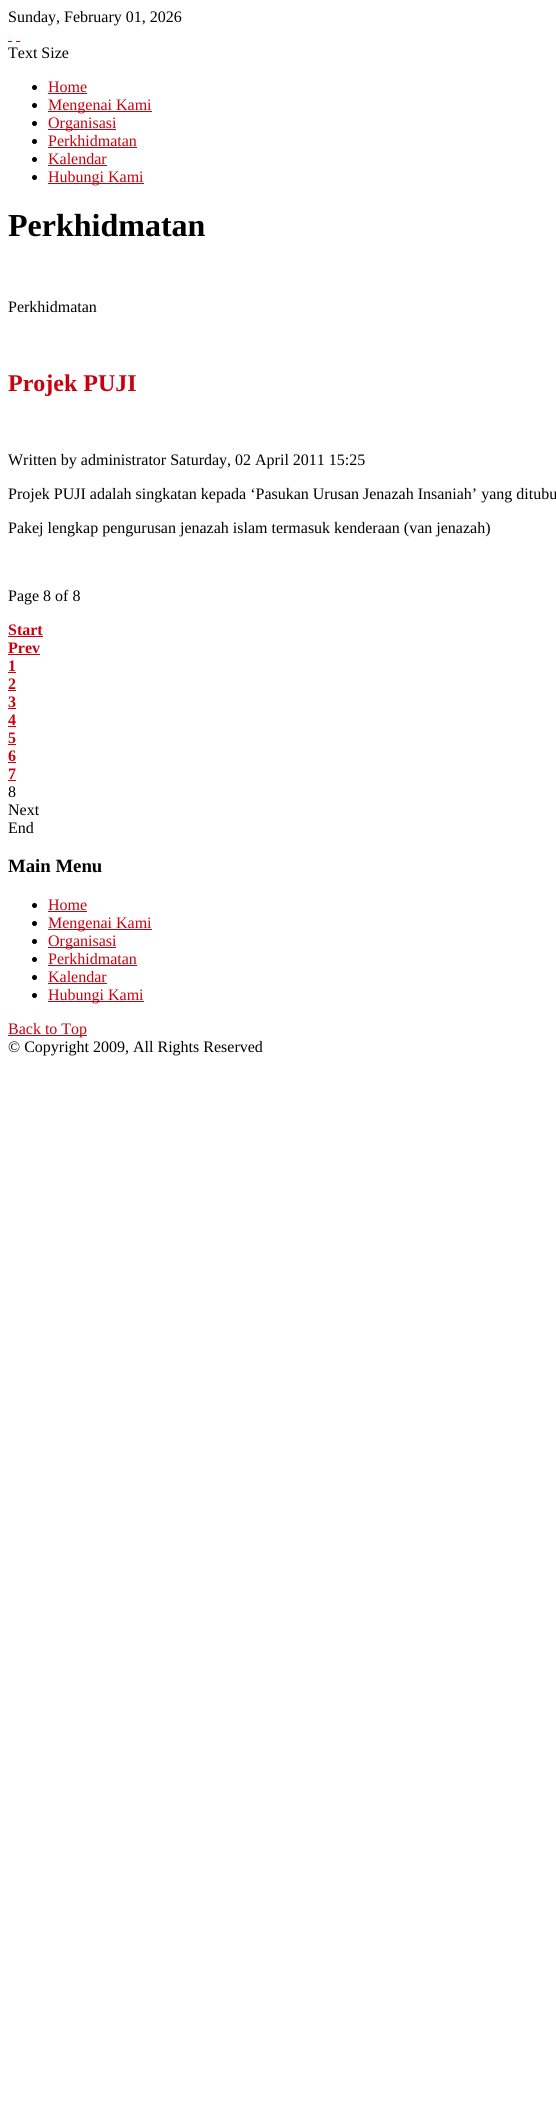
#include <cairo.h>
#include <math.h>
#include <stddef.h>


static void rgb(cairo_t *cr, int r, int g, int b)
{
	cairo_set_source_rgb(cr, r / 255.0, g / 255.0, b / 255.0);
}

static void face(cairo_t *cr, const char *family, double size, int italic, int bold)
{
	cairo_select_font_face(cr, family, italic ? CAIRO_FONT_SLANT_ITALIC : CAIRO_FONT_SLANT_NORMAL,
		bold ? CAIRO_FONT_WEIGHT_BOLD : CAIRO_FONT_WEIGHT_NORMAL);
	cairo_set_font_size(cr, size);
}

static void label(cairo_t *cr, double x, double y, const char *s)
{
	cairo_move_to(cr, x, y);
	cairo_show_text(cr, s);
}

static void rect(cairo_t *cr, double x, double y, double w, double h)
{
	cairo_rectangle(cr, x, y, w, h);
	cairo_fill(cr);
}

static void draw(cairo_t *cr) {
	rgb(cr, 255, 255, 255);
	cairo_paint(cr);
	face(cr, "Liberation Serif", 16, 0, 0);
	rgb(cr, 0, 0, 0);
	label(cr, 8, 22, "Sunday, February 01, 2026");
	rgb(cr, 201, 1, 14);
	rect(cr, 8, 41, 4, 1);
	rect(cr, 16, 41, 4, 1);
	rgb(cr, 0, 0, 0);
	label(cr, 8, 58, "Text Size");
	cairo_new_path(cr);
	cairo_arc(cr, 34.5, 87.5, 2.5, 0, 2 * M_PI);
	cairo_fill(cr);
	rgb(cr, 201, 1, 14);
	label(cr, 48, 92, "Home");
	rect(cr, 48, 93, 39, 1);
	rgb(cr, 0, 0, 0);
	cairo_new_path(cr);
	cairo_arc(cr, 34.5, 105.5, 2.5, 0, 2 * M_PI);
	cairo_fill(cr);
	rgb(cr, 201, 1, 14);
	rect(cr, 48, 111, 104, 1);
	label(cr, 48, 110, "Mengenai Kami");
	rgb(cr, 0, 0, 0);
	cairo_new_path(cr);
	cairo_arc(cr, 34.5, 123.5, 2.5, 0, 2 * M_PI);
	cairo_fill(cr);
	rgb(cr, 201, 1, 14);
	rect(cr, 48, 129, 68, 1);
	label(cr, 48, 128, "Organisasi");
	rgb(cr, 0, 0, 0);
	cairo_new_path(cr);
	cairo_arc(cr, 34.5, 141.5, 2.5, 0, 2 * M_PI);
	cairo_fill(cr);
	rgb(cr, 201, 1, 14);
	label(cr, 48, 146, "Perkhidmatan");
	rect(cr, 48, 147, 89, 1);
	rgb(cr, 0, 0, 0);
	cairo_new_path(cr);
	cairo_arc(cr, 34.5, 159.5, 2.5, 0, 2 * M_PI);
	cairo_fill(cr);
	rgb(cr, 201, 1, 14);
	label(cr, 48, 164, "Kalendar");
	rect(cr, 48, 165, 59, 1);
	rgb(cr, 0, 0, 0);
	cairo_new_path(cr);
	cairo_arc(cr, 34.5, 177.5, 2.5, 0, 2 * M_PI);
	cairo_fill(cr);
	rgb(cr, 201, 1, 14);
	rect(cr, 48, 183, 96, 1);
	label(cr, 48, 182, "Hubungi Kami");
	face(cr, "Liberation Serif", 32, 0, 1);
	rgb(cr, 0, 0, 0);
	label(cr, 8, 236, "Perkhidmatan");
	face(cr, "Liberation Serif", 16, 0, 0);
	label(cr, 8, 312, "Perkhidmatan");
	face(cr, "Liberation Serif", 24, 0, 1);
	rgb(cr, 201, 1, 14);
	label(cr, 8, 391, "Projek PUJI");
	face(cr, "Liberation Serif", 16, 0, 0);
	rgb(cr, 0, 0, 0);
	label(cr, 8, 465, "Written by administrator Saturday, 02 April 2011 15:25");
	label(cr, 8, 499, "Projek PUJI adalah singkatan kepada ‘Pasukan Urusan Jenazah Insaniah’ yang ditubu");
	label(cr, 8, 533, "Pakej lengkap pengurusan jenazah islam termasuk kenderaan (van jenazah)");
	label(cr, 8, 601, "Page 8 of 8");
	face(cr, "Liberation Serif", 16, 0, 1);
	rgb(cr, 201, 1, 14);
	label(cr, 8, 635, "Start");
	rect(cr, 8, 636, 35, 1);
	label(cr, 8, 653, "Prev");
	rect(cr, 8, 654, 32, 1);
	label(cr, 8, 671, "1");
	rect(cr, 8, 672, 8, 1);
	label(cr, 8, 689, "2");
	rect(cr, 8, 690, 8, 1);
	label(cr, 8, 707, "3");
	rect(cr, 8, 708, 8, 1);
	label(cr, 8, 725, "4");
	rect(cr, 8, 726, 8, 1);
	label(cr, 8, 743, "5");
	rect(cr, 8, 744, 8, 1);
	label(cr, 8, 761, "6");
	rect(cr, 8, 762, 8, 1);
	label(cr, 8, 779, "7");
	rect(cr, 8, 780, 8, 1);
	face(cr, "Liberation Serif", 16, 0, 0);
	rgb(cr, 0, 0, 0);
	label(cr, 8, 797, "8");
	label(cr, 8, 815, "Next");
	label(cr, 8, 833, "End");
	face(cr, "Liberation Serif", 18.75, 0, 1);
	label(cr, 8, 872, "Main Menu");
	cairo_new_path(cr);
	cairo_arc(cr, 34.5, 905.5, 2.5, 0, 2 * M_PI);
	cairo_fill(cr);
	face(cr, "Liberation Serif", 16, 0, 0);
	rgb(cr, 201, 1, 14);
	label(cr, 48, 910, "Home");
	rect(cr, 48, 911, 39, 1);
	rgb(cr, 0, 0, 0);
	cairo_new_path(cr);
	cairo_arc(cr, 34.5, 923.5, 2.5, 0, 2 * M_PI);
	cairo_fill(cr);
	rgb(cr, 201, 1, 14);
	rect(cr, 48, 929, 104, 1);
	label(cr, 48, 928, "Mengenai Kami");
	rgb(cr, 0, 0, 0);
	cairo_new_path(cr);
	cairo_arc(cr, 34.5, 941.5, 2.5, 0, 2 * M_PI);
	cairo_fill(cr);
	rgb(cr, 201, 1, 14);
	rect(cr, 48, 947, 68, 1);
	label(cr, 48, 946, "Organisasi");
	rgb(cr, 0, 0, 0);
	cairo_new_path(cr);
	cairo_arc(cr, 34.5, 959.5, 2.5, 0, 2 * M_PI);
	cairo_fill(cr);
	rgb(cr, 201, 1, 14);
	label(cr, 48, 964, "Perkhidmatan");
	rect(cr, 48, 965, 89, 1);
	rgb(cr, 0, 0, 0);
	cairo_new_path(cr);
	cairo_arc(cr, 34.5, 977.5, 2.5, 0, 2 * M_PI);
	cairo_fill(cr);
	rgb(cr, 201, 1, 14);
	label(cr, 48, 982, "Kalendar");
	rect(cr, 48, 983, 59, 1);
	rgb(cr, 0, 0, 0);
	cairo_new_path(cr);
	cairo_arc(cr, 34.5, 995.5, 2.5, 0, 2 * M_PI);
	cairo_fill(cr);
	rgb(cr, 201, 1, 14);
	rect(cr, 48, 1001, 96, 1);
	label(cr, 48, 1000, "Hubungi Kami");
	rect(cr, 8, 1035, 79, 1);
	label(cr, 8, 1034, "Back to Top");
	rgb(cr, 0, 0, 0);
	label(cr, 8, 1052, "© Copyright 2009, All Rights Reserved");
}

int main(void) {
	cairo_surface_t *surface = cairo_image_surface_create(CAIRO_FORMAT_RGB24, 556, 2101);
	cairo_t *cr = cairo_create(surface);
	cairo_font_options_t *options = cairo_font_options_create();
	cairo_font_options_set_hint_metrics(options, CAIRO_HINT_METRICS_OFF);
	cairo_font_options_set_hint_style(options, CAIRO_HINT_STYLE_NONE);
	cairo_set_font_options(cr, options);
	cairo_set_miter_limit(cr, 4);
	draw(cr);
	cairo_surface_write_to_png(surface, "render.png");
	cairo_font_options_destroy(options);
	cairo_destroy(cr);
	cairo_surface_destroy(surface);
	return 0;
}
